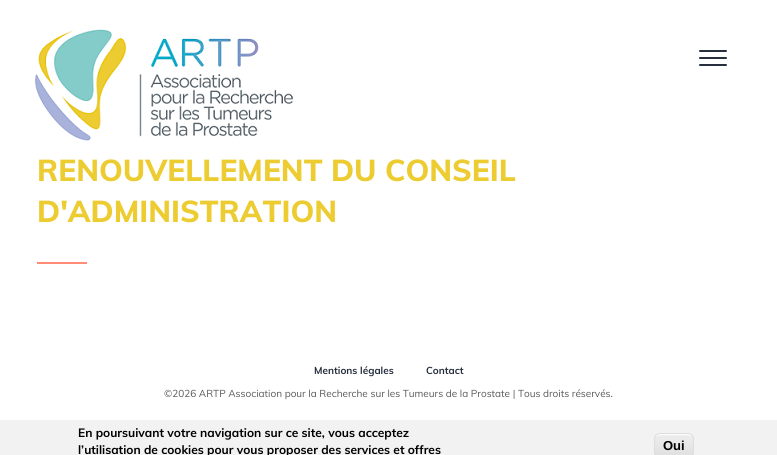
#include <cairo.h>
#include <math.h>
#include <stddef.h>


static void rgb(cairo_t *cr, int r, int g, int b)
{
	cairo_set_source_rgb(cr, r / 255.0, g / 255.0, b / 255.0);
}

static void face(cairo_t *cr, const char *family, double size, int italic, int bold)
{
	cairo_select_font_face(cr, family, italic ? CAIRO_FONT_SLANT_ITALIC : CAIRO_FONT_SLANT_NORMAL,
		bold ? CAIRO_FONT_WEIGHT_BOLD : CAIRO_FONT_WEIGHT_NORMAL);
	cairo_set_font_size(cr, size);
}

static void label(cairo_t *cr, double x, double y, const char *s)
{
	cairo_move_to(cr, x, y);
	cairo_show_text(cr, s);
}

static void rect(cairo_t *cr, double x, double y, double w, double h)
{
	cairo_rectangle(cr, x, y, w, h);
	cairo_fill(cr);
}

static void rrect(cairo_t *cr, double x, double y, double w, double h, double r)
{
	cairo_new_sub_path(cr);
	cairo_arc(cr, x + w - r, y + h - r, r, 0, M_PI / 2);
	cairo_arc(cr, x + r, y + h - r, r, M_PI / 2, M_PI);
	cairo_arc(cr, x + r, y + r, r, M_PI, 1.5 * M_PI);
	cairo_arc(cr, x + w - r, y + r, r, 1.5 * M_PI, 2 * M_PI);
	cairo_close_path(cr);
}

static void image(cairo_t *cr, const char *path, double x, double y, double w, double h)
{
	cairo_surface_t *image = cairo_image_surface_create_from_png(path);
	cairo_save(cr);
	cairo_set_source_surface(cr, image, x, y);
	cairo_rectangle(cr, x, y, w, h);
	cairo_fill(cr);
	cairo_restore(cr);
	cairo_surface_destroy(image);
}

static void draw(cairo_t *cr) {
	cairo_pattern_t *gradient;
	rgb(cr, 255, 255, 255);
	cairo_paint(cr);
	rgb(cr, 39, 47, 63);
	rrect(cr, 699, 50, 28, 2, 1);
	cairo_fill(cr);
	rrect(cr, 699, 57, 28, 2, 1);
	cairo_fill(cr);
	rrect(cr, 699, 64, 28, 2, 1);
	cairo_fill(cr);
	image(cr, "image0.png", 34, 29, 260, 112);
	face(cr, "Muli ExtraBold", 30, 0, 0);
	rgb(cr, 236, 204, 49);
	label(cr, 37, 181, "RENOUVELLEMENT DU CONSEIL");
	label(cr, 37, 222, "D'ADMINISTRATION");
	rgb(cr, 255, 140, 118);
	rect(cr, 37, 262, 50, 2);
	face(cr, "Muli", 10, 0, 1);
	rgb(cr, 39, 47, 63);
	label(cr, 314, 374, "Mentions légales");
	label(cr, 426, 374, "Contact");
	face(cr, "Muli", 10, 0, 0);
	rgb(cr, 89, 89, 89);
	label(cr, 164, 397, "©2026 ARTP Association pour la Recherche sur les Tumeurs de la Prostate | Tous droits réservés.");
	rgb(cr, 242, 242, 242);
	rect(cr, 0, 420, 777, 35);
	face(cr, "Muli", 12, 0, 1);
	rgb(cr, 0, 0, 0);
	label(cr, 78, 437, "En poursuivant votre navigation sur ce site, vous acceptez");
	label(cr, 78, 454, "l’utilisation de cookies pour vous proposer des services et offres");
	cairo_save(cr);
	rrect(cr, 654, 433, 40, 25, 6);
	cairo_clip(cr);
	gradient = cairo_pattern_create_linear(674, 434, 674, 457);
	cairo_pattern_add_color_stop_rgba(gradient, 0.05, 0.929, 0.929, 0.929, 1);
	cairo_pattern_add_color_stop_rgba(gradient, 1, 0.875, 0.875, 0.875, 1);
	cairo_set_source(cr, gradient);
	cairo_pattern_destroy(gradient);
	rect(cr, 654, 434, 40, 21);
	cairo_restore(cr);
	rgb(cr, 255, 255, 255);
	cairo_set_fill_rule(cr, CAIRO_FILL_RULE_EVEN_ODD);
	cairo_new_path(cr);
	cairo_move_to(cr, 660, 435);
	cairo_line_to(cr, 683, 435);
	cairo_curve_to(cr, 691.5, 435, 693, 436, 693, 441);
	cairo_curve_to(cr, 693, 433.5, 689.5, 434, 683.5, 434);
	cairo_line_to(cr, 664.5, 434);
	cairo_curve_to(cr, 658, 434, 655, 433.5, 655, 441);
	cairo_curve_to(cr, 655, 438, 656, 435, 660, 435);
	cairo_close_path(cr);
	cairo_move_to(cr, 693, 452);
	cairo_line_to(cr, 693, 453);
	cairo_close_path(cr);
	cairo_fill(cr);
	rrect(cr, 654.5, 433.5, 39, 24, 5.5);
	rgb(cr, 220, 220, 220);
	cairo_set_line_width(cr, 1);
	cairo_stroke(cr);
	face(cr, "Liberation Sans", 13, 0, 1);
	rgb(cr, 0, 0, 0);
	label(cr, 663, 450, "Oui");
}

int main(void) {
	cairo_surface_t *surface = cairo_image_surface_create(CAIRO_FORMAT_RGB24, 777, 455);
	cairo_t *cr = cairo_create(surface);
	cairo_font_options_t *options = cairo_font_options_create();
	cairo_font_options_set_hint_metrics(options, CAIRO_HINT_METRICS_OFF);
	cairo_font_options_set_hint_style(options, CAIRO_HINT_STYLE_NONE);
	cairo_set_font_options(cr, options);
	cairo_set_miter_limit(cr, 4);
	draw(cr);
	cairo_surface_write_to_png(surface, "render.png");
	cairo_font_options_destroy(options);
	cairo_destroy(cr);
	cairo_surface_destroy(surface);
	return 0;
}
